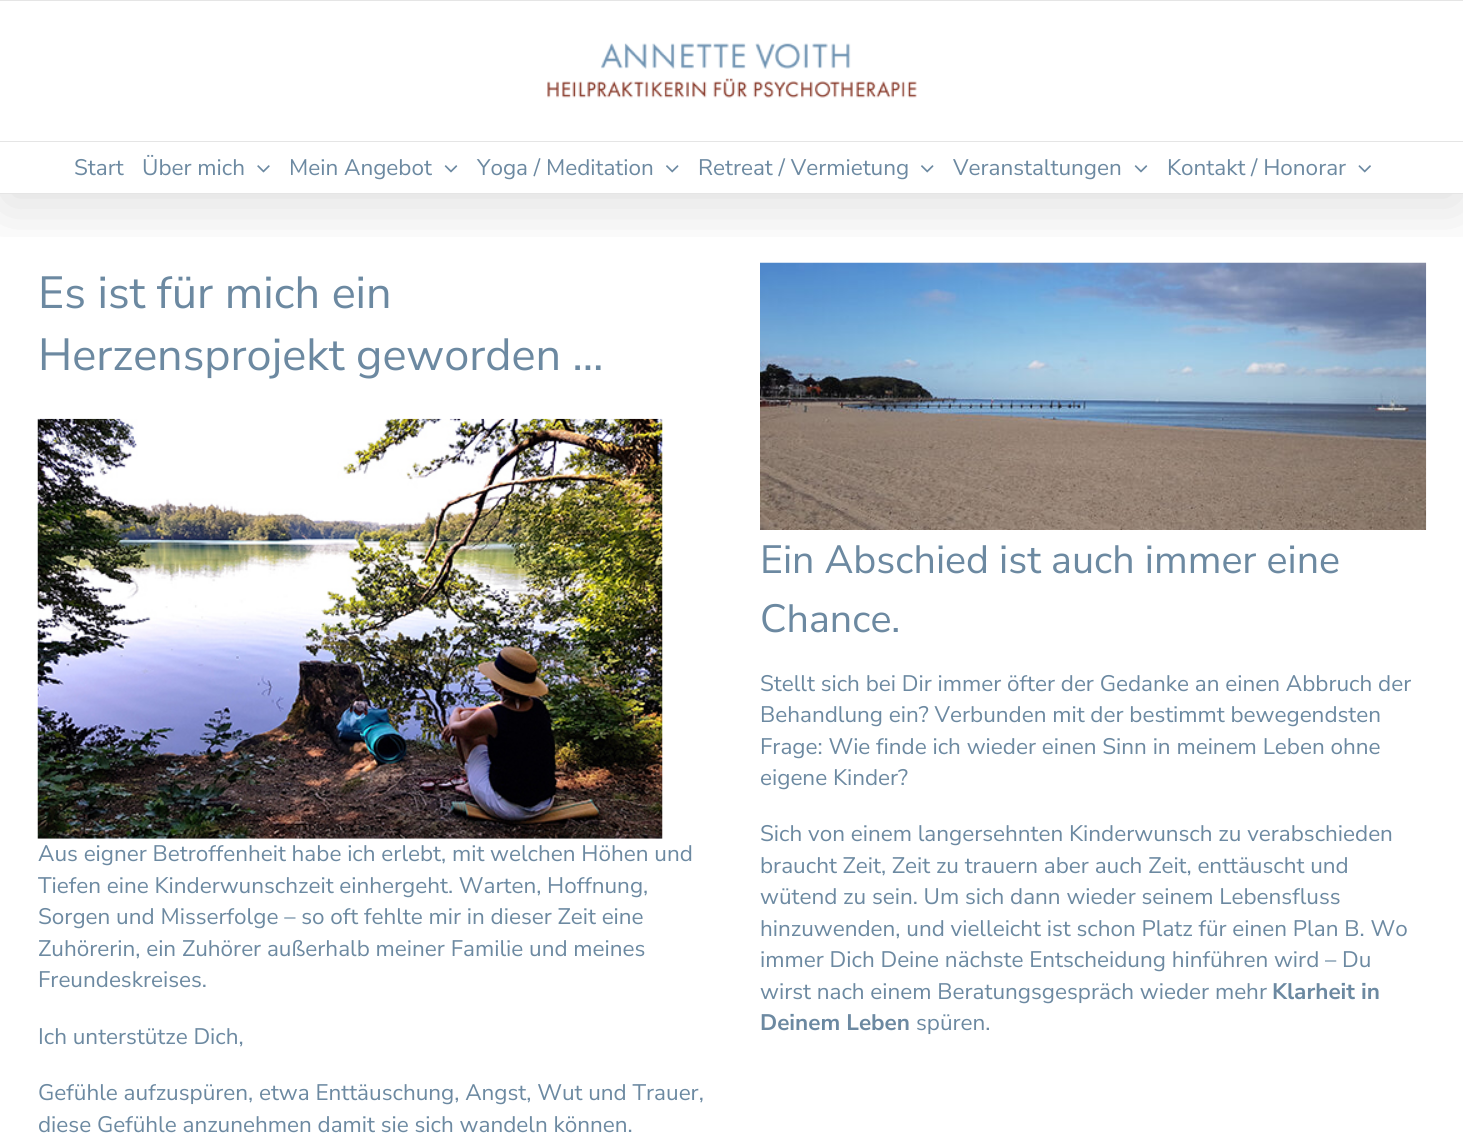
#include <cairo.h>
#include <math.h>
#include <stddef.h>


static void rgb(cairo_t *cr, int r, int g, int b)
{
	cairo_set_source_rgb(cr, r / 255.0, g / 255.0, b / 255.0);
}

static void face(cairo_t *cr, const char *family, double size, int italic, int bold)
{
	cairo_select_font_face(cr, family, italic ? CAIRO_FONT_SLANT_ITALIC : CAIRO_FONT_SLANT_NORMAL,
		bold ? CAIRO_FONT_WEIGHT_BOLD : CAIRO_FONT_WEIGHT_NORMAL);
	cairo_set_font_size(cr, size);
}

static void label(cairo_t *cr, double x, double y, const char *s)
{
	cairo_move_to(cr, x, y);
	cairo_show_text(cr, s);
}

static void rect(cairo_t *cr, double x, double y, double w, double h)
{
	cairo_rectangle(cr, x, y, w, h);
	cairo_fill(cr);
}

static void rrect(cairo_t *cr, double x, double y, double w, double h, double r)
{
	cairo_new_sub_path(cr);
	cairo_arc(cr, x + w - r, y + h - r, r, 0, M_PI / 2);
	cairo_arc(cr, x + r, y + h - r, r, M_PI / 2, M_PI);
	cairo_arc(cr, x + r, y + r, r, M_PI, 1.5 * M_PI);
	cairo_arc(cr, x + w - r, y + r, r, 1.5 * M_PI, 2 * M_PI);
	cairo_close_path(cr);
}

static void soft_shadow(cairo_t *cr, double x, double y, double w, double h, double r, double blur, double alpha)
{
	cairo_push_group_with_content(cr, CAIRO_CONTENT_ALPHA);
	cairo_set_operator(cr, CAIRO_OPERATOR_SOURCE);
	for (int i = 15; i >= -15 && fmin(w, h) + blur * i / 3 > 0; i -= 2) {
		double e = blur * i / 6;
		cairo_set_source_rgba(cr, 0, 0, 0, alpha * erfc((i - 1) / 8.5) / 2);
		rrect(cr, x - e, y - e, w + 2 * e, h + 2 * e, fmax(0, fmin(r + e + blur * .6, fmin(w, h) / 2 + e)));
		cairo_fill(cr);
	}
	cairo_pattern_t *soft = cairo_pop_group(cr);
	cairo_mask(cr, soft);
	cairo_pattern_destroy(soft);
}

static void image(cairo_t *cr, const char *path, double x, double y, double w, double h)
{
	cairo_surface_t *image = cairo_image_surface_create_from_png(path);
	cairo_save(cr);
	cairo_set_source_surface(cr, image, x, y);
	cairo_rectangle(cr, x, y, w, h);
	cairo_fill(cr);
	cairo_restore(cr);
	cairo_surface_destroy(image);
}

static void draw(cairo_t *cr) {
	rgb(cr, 255, 255, 255);
	cairo_paint(cr);
	image(cr, "image6.png", 760, 262, 667, 268);
	cairo_save(cr);
	cairo_rectangle(cr, 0, 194, 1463, 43);
	cairo_clip(cr);
	rgb(cr, 0, 0, 0);
	soft_shadow(cr, 3, 15, 1458, 189, 0, 31, 0.14);
	cairo_restore(cr);
	rgb(cr, 229, 229, 229);
	rect(cr, 0, 0, 1463, 1);
	rect(cr, 0, 141, 1463, 1);
	image(cr, "image0.png", 547, 43, 370, 55);
	rect(cr, 0, 193, 1463, 1);
	face(cr, "Nunito Sans", 22.5, 0, 0);
	rgb(cr, 108, 137, 161);
	label(cr, 74, 175, "Start");
	label(cr, 142, 175, "Über mich");
	image(cr, "image1.png", 257, 165, 13, 8);
	label(cr, 289, 175, "Mein Angebot");
	image(cr, "image2.png", 444, 165, 14, 8);
	label(cr, 477, 175, "Yoga / Meditation");
	image(cr, "image3.png", 666, 165, 13, 8);
	label(cr, 698, 175, "Retreat / Vermietung");
	image(cr, "image3.png", 921, 165, 13, 8);
	label(cr, 953, 175, "Veranstaltungen");
	image(cr, "image2.png", 1134, 165, 14, 8);
	label(cr, 1167, 175, "Kontakt / Honorar");
	image(cr, "image4.png", 1358, 165, 13, 8);
	face(cr, "Nunito Sans", 45, 0, 0);
	label(cr, 38, 308, "Es ist für mich ein");
	label(cr, 38, 370, "Herzensprojekt geworden …");
	image(cr, "image5.png", 37, 418, 626, 421);
	face(cr, "Nunito Sans", 22.5, 0, 0);
	label(cr, 38, 861, "Aus eigner Betroffenheit habe ich erlebt, mit welchen Höhen und");
	label(cr, 38, 893, "Tiefen eine Kinderwunschzeit einhergeht. Warten, Hoffnung,");
	label(cr, 38, 924, "Sorgen und Misserfolge – so oft fehlte mir in dieser Zeit eine");
	label(cr, 38, 956, "Zuhörerin, ein Zuhörer außerhalb meiner Familie und meines");
	label(cr, 38, 987, "Freundeskreises.");
	label(cr, 38, 1044, "Ich unterstütze Dich,");
	label(cr, 38, 1100, "Gefühle aufzuspüren, etwa Enttäuschung, Angst, Wut und Trauer,");
	label(cr, 38, 1132, "diese Gefühle anzunehmen damit sie sich wandeln können.");
	face(cr, "Nunito Sans", 39.4, 0, 0);
	label(cr, 760, 573, "Ein Abschied ist auch immer eine");
	label(cr, 760, 632, "Chance.");
	face(cr, "Nunito Sans", 22.5, 0, 0);
	label(cr, 760, 691, "Stellt sich bei Dir immer öfter der Gedanke an einen Abbruch der");
	label(cr, 760, 722, "Behandlung ein? Verbunden mit der bestimmt bewegendsten");
	label(cr, 760, 754, "Frage: Wie finde ich wieder einen Sinn in meinem Leben ohne");
	label(cr, 760, 785, "eigene Kinder?");
	label(cr, 760, 841, "Sich von einem langersehnten Kinderwunsch zu verabschieden");
	label(cr, 760, 873, "braucht Zeit, Zeit zu trauern aber auch Zeit, enttäuscht und");
	label(cr, 760, 904, "wütend zu sein. Um sich dann wieder seinem Lebensfluss");
	label(cr, 760, 936, "hinzuwenden, und vielleicht ist schon Platz für einen Plan B. Wo");
	label(cr, 760, 967, "immer Dich Deine nächste Entscheidung hinführen wird – Du");
	label(cr, 760, 999, "wirst nach einem Beratungsgespräch wieder mehr");
	face(cr, "Nunito Sans", 22.5, 0, 1);
	label(cr, 1272, 999, "Klarheit in");
	label(cr, 760, 1030, "Deinem Leben");
	face(cr, "Nunito Sans", 22.5, 0, 0);
	label(cr, 916, 1030, "spüren.");
}

int main(void) {
	cairo_surface_t *surface = cairo_image_surface_create(CAIRO_FORMAT_RGB24, 1463, 1145);
	cairo_t *cr = cairo_create(surface);
	cairo_font_options_t *options = cairo_font_options_create();
	cairo_font_options_set_hint_metrics(options, CAIRO_HINT_METRICS_OFF);
	cairo_font_options_set_hint_style(options, CAIRO_HINT_STYLE_NONE);
	cairo_set_font_options(cr, options);
	cairo_set_miter_limit(cr, 4);
	draw(cr);
	cairo_surface_write_to_png(surface, "render.png");
	cairo_font_options_destroy(options);
	cairo_destroy(cr);
	cairo_surface_destroy(surface);
	return 0;
}
